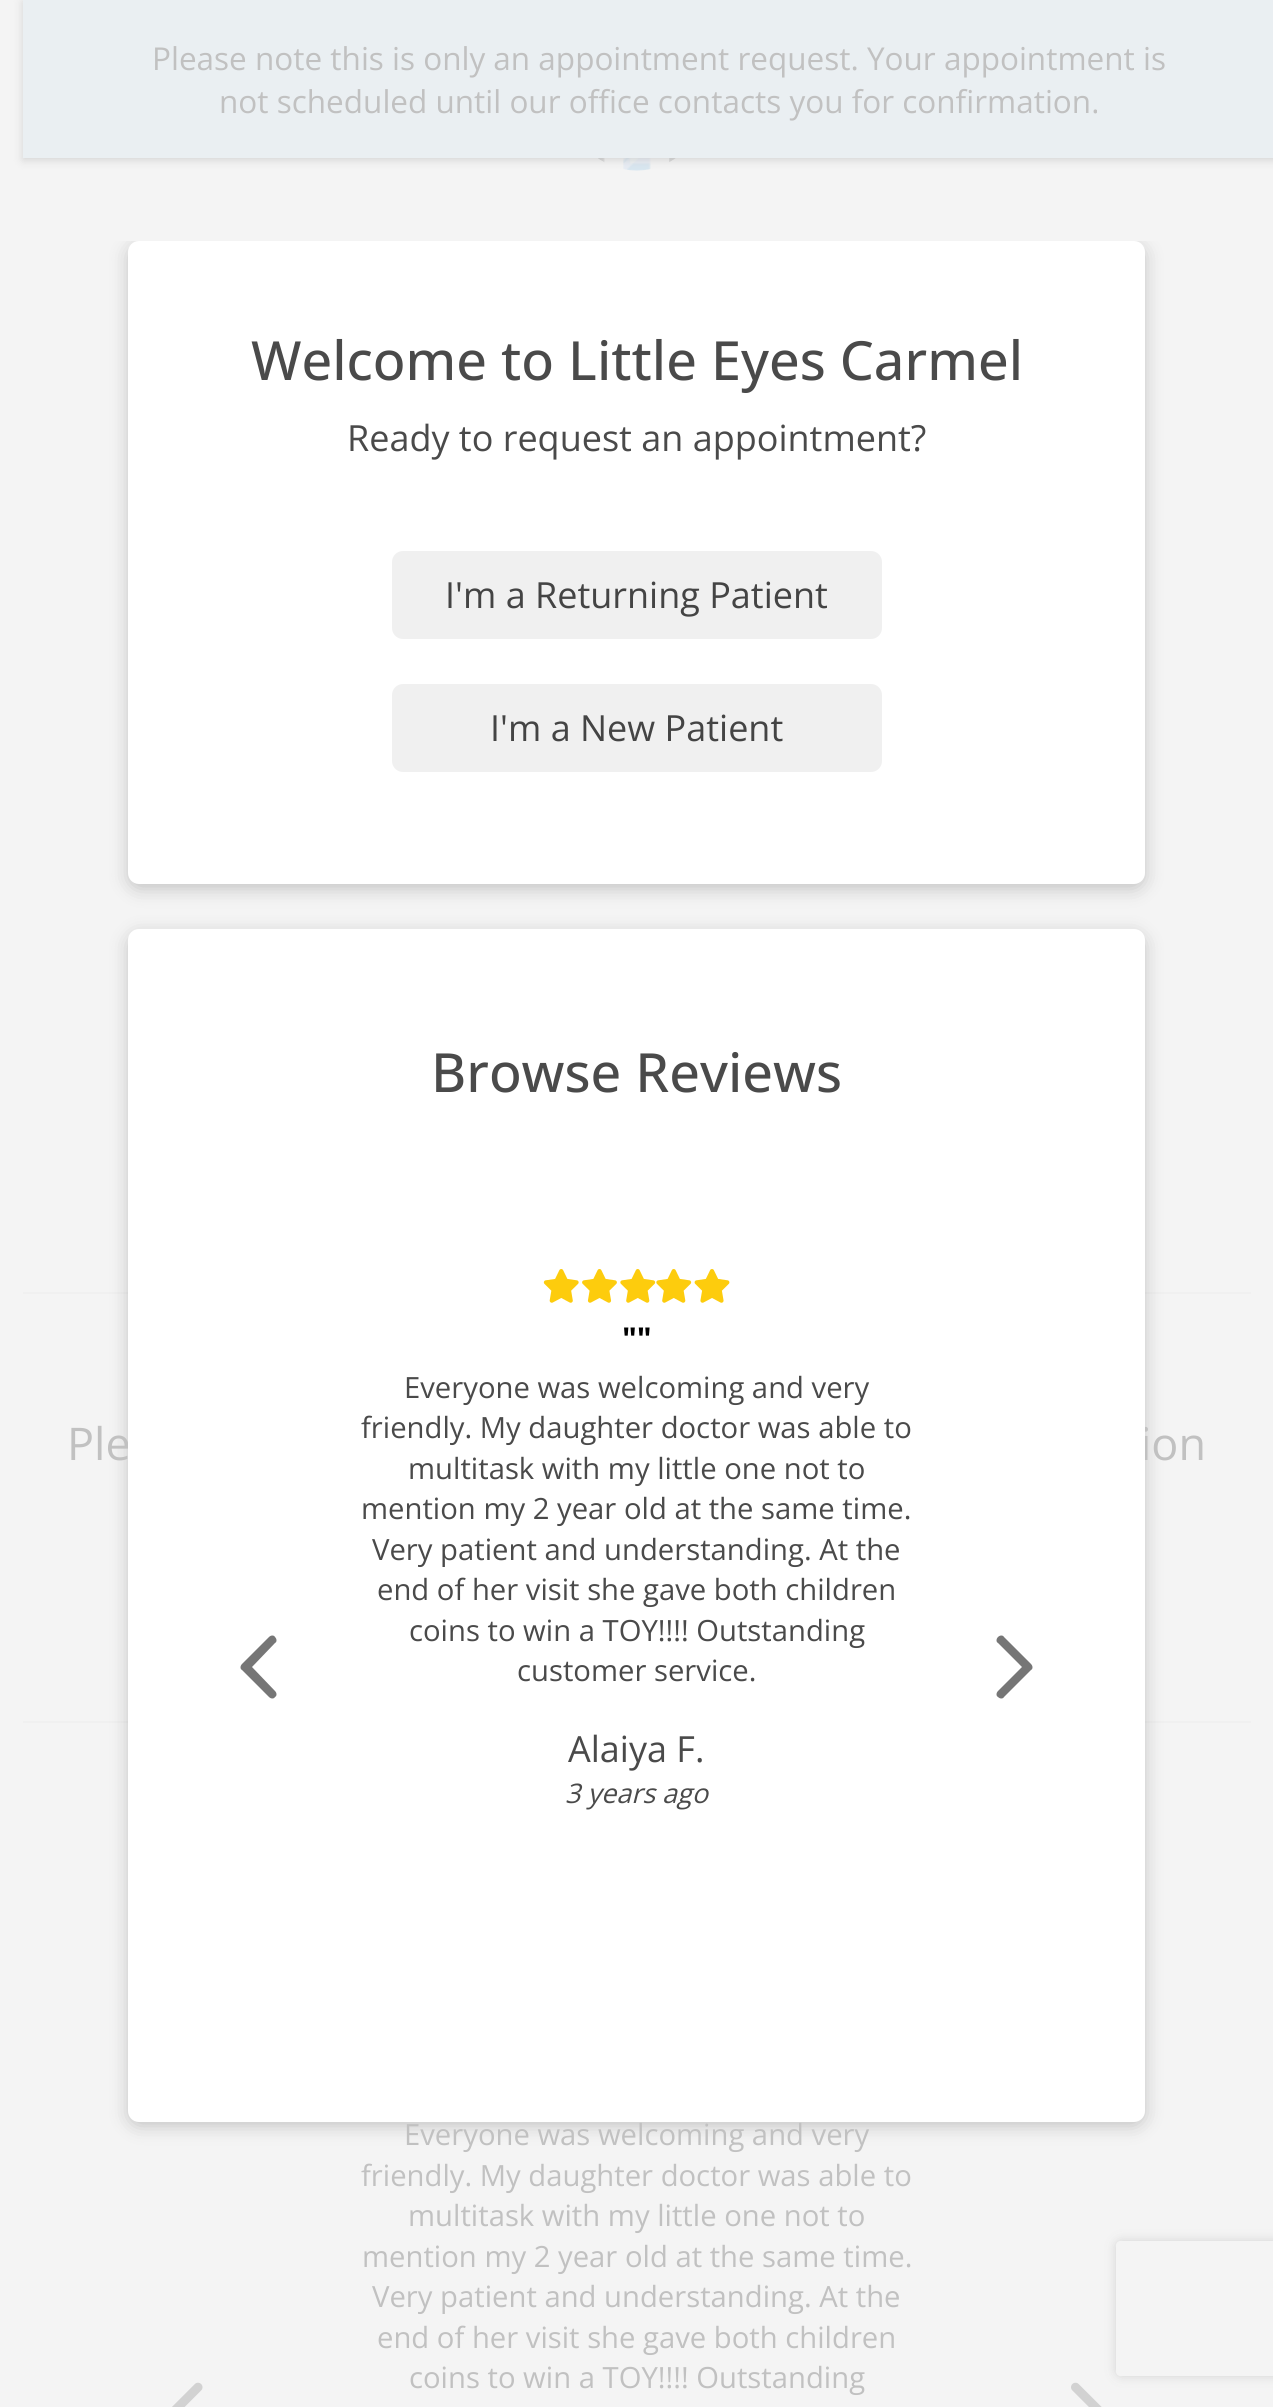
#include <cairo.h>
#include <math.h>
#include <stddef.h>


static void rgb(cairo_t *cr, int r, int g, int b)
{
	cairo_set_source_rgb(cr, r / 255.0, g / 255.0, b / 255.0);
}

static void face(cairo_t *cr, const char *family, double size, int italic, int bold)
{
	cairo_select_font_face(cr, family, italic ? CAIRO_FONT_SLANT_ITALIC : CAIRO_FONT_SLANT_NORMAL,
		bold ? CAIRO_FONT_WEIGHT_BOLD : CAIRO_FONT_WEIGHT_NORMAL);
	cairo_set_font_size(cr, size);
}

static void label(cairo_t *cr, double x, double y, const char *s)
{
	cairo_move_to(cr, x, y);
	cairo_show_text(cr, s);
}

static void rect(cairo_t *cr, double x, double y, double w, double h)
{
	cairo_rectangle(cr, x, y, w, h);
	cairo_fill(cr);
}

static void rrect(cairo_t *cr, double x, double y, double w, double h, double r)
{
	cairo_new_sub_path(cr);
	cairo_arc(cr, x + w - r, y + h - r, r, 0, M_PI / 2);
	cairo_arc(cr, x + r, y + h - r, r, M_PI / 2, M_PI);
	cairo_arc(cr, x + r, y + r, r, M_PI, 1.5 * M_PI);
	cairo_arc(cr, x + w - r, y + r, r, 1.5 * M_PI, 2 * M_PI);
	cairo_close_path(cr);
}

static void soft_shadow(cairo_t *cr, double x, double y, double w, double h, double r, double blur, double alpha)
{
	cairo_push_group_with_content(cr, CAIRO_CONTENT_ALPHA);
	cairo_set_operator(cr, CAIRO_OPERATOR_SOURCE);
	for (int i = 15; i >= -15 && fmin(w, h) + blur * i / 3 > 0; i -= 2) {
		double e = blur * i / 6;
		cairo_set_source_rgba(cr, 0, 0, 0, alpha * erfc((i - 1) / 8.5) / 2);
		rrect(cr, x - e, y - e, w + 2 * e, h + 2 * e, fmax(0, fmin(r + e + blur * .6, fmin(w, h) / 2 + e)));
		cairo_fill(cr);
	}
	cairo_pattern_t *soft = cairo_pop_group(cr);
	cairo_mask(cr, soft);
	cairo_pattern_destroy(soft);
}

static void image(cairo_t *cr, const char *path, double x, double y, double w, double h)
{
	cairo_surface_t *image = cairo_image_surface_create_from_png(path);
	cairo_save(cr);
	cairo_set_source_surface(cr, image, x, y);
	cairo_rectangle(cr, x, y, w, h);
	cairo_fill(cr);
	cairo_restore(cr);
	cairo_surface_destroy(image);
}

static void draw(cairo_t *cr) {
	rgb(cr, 244, 244, 244);
	cairo_paint(cr);
	image(cr, "image4.png", 598, 158, 78, 13);
	rgb(cr, 180, 180, 180);
	soft_shadow(cr, 23, 2, 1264, 158, 0, 4.5, 0.5);
	rgb(cr, 234, 239, 242);
	rect(cr, 23, 0, 1250, 158);
	face(cr, "Open Sans", 31.5, 0, 0);
	rgb(cr, 193, 193, 193);
	label(cr, 152, 70, "Please note this is only an appointment request. Your appointment is");
	label(cr, 219, 113, "not scheduled until our office contacts you for confirmation.");
	cairo_save(cr);
	cairo_rectangle(cr, 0, 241, 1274, 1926);
	cairo_clip(cr);
	rgb(cr, 0, 0, 0);
	soft_shadow(cr, 128, 245, 1017, 644, 11, 9, 0.2);
	cairo_restore(cr);
	rgb(cr, 255, 255, 255);
	rrect(cr, 128, 241, 1017, 643, 11);
	cairo_fill(cr);
	face(cr, "Open Sans Medium", 54, 0, 0);
	rgb(cr, 74, 74, 74);
	label(cr, 251, 380, "Welcome to Little Eyes Carmel");
	face(cr, "Open Sans", 36, 0, 0);
	label(cr, 347, 451, "Ready to request an appointment?");
	rgb(cr, 240, 240, 240);
	rrect(cr, 392, 551, 490, 88, 11);
	cairo_fill(cr);
	rgb(cr, 68, 68, 68);
	label(cr, 445, 608, "I'm a Returning Patient");
	rgb(cr, 240, 240, 240);
	rrect(cr, 392, 684, 490, 88, 11);
	cairo_fill(cr);
	rgb(cr, 68, 68, 68);
	label(cr, 490, 741, "I'm a New Patient");
	rgb(cr, 240, 240, 240);
	rect(cr, 23, 1292, 1228, 2);
	rect(cr, 23, 1721, 1228, 2);
	rgb(cr, 0, 0, 0);
	soft_shadow(cr, 128, 934, 1017, 1192, 11, 9, 0.2);
	face(cr, "Open Sans", 45, 0, 0);
	rgb(cr, 193, 193, 193);
	label(cr, 67, 1460, "Ple");
	label(cr, 1140, 1460, "ion");
	rgb(cr, 255, 255, 255);
	rrect(cr, 128, 929, 1017, 1193, 11);
	cairo_fill(cr);
	face(cr, "Open Sans Medium", 54, 0, 0);
	rgb(cr, 74, 74, 74);
	label(cr, 431, 1092, "Browse Reviews");
	rgb(cr, 118, 118, 118);
	cairo_new_path(cr);
	cairo_move_to(cr, 242, 1664);
	cairo_curve_to(cr, 240, 1666, 240, 1669, 242, 1670);
	cairo_line_to(cr, 269, 1697);
	cairo_curve_to(cr, 271, 1699, 274, 1699, 275, 1697);
	cairo_curve_to(cr, 277, 1696, 277, 1693, 275, 1691);
	cairo_line_to(cr, 252, 1667);
	cairo_line_to(cr, 275, 1643);
	cairo_curve_to(cr, 277, 1642, 277, 1639, 275, 1637);
	cairo_curve_to(cr, 274, 1635, 271, 1635, 269, 1637);
	cairo_close_path(cr);
	cairo_fill(cr);
	image(cr, "image0.png", 543, 1269, 36, 34);
	image(cr, "image1.png", 582, 1269, 35, 34);
	image(cr, "image2.png", 620, 1269, 36, 34);
	image(cr, "image2.png", 656, 1269, 36, 34);
	image(cr, "image3.png", 694, 1269, 36, 34);
	face(cr, "Open Sans", 31.5, 0, 1);
	rgb(cr, 0, 0, 0);
	label(cr, 622, 1350, "\"\"");
	face(cr, "Open Sans", 29.25, 0, 0);
	rgb(cr, 74, 74, 74);
	label(cr, 404, 1398, "Everyone was welcoming and very");
	label(cr, 361, 1438, "friendly. My daughter doctor was able to");
	label(cr, 408, 1479, "multitask with my little one not to");
	label(cr, 361, 1519, "mention my 2 year old at the same time.");
	label(cr, 372, 1560, "Very patient and understanding. At the");
	label(cr, 377, 1600, "end of her visit she gave both children");
	label(cr, 409, 1641, "coins to win a TOY!!!! Outstanding");
	label(cr, 517, 1681, "customer service.");
	face(cr, "Open Sans", 36, 0, 0);
	label(cr, 568, 1762, "Alaiya F.");
	face(cr, "Open Sans", 27, 1, 0);
	label(cr, 565, 1803, "3 years ago");
	rgb(cr, 118, 118, 118);
	cairo_new_path(cr);
	cairo_move_to(cr, 1031, 1664);
	cairo_curve_to(cr, 1033, 1666, 1033, 1669, 1031, 1670);
	cairo_line_to(cr, 1004, 1697);
	cairo_curve_to(cr, 1003, 1699, 1000, 1699, 998, 1697);
	cairo_curve_to(cr, 996, 1696, 996, 1693, 998, 1691);
	cairo_line_to(cr, 1022, 1667);
	cairo_line_to(cr, 998, 1643);
	cairo_curve_to(cr, 996, 1642, 996, 1639, 998, 1637);
	cairo_curve_to(cr, 1000, 1635, 1003, 1635, 1004, 1637);
	cairo_close_path(cr);
	cairo_fill(cr);
	image(cr, "image5.png", 172, 2382, 31, 25);
	face(cr, "Open Sans", 29.25, 0, 0);
	rgb(cr, 193, 193, 193);
	label(cr, 404, 2145, "Everyone was welcoming and very");
	label(cr, 361, 2186, "friendly. My daughter doctor was able to");
	label(cr, 408, 2226, "multitask with my little one not to");
	label(cr, 362, 2267, "mention my 2 year old at the same time.");
	label(cr, 372, 2307, "Very patient and understanding. At the");
	label(cr, 377, 2348, "end of her visit she gave both children");
	label(cr, 409, 2388, "coins to win a TOY!!!! Outstanding");
	image(cr, "image6.png", 1071, 2382, 31, 25);
	cairo_save(cr);
	cairo_set_fill_rule(cr, CAIRO_FILL_RULE_EVEN_ODD);
	cairo_new_path(cr);
	cairo_move_to(cr, 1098, 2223);
	cairo_line_to(cr, 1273, 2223);
	cairo_line_to(cr, 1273, 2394);
	cairo_line_to(cr, 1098, 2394);
	cairo_close_path(cr);
	cairo_move_to(cr, 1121, 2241);
	cairo_line_to(cr, 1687, 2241);
	cairo_curve_to(cr, 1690, 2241, 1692, 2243, 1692, 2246);
	cairo_line_to(cr, 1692, 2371);
	cairo_curve_to(cr, 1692, 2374, 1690, 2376, 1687, 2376);
	cairo_line_to(cr, 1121, 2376);
	cairo_curve_to(cr, 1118, 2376, 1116, 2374, 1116, 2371);
	cairo_line_to(cr, 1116, 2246);
	cairo_curve_to(cr, 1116, 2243, 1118, 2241, 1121, 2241);
	cairo_close_path(cr);
	cairo_clip(cr);
	rgb(cr, 212, 212, 212);
	soft_shadow(cr, 1116, 2241, 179, 135, 5, 5.5, 1);
	cairo_restore(cr);
}

int main(void) {
	cairo_surface_t *surface = cairo_image_surface_create(CAIRO_FORMAT_RGB24, 1273, 2407);
	cairo_t *cr = cairo_create(surface);
	cairo_font_options_t *options = cairo_font_options_create();
	cairo_font_options_set_hint_metrics(options, CAIRO_HINT_METRICS_OFF);
	cairo_font_options_set_hint_style(options, CAIRO_HINT_STYLE_NONE);
	cairo_set_font_options(cr, options);
	cairo_set_miter_limit(cr, 4);
	draw(cr);
	cairo_surface_write_to_png(surface, "render.png");
	cairo_font_options_destroy(options);
	cairo_destroy(cr);
	cairo_surface_destroy(surface);
	return 0;
}
